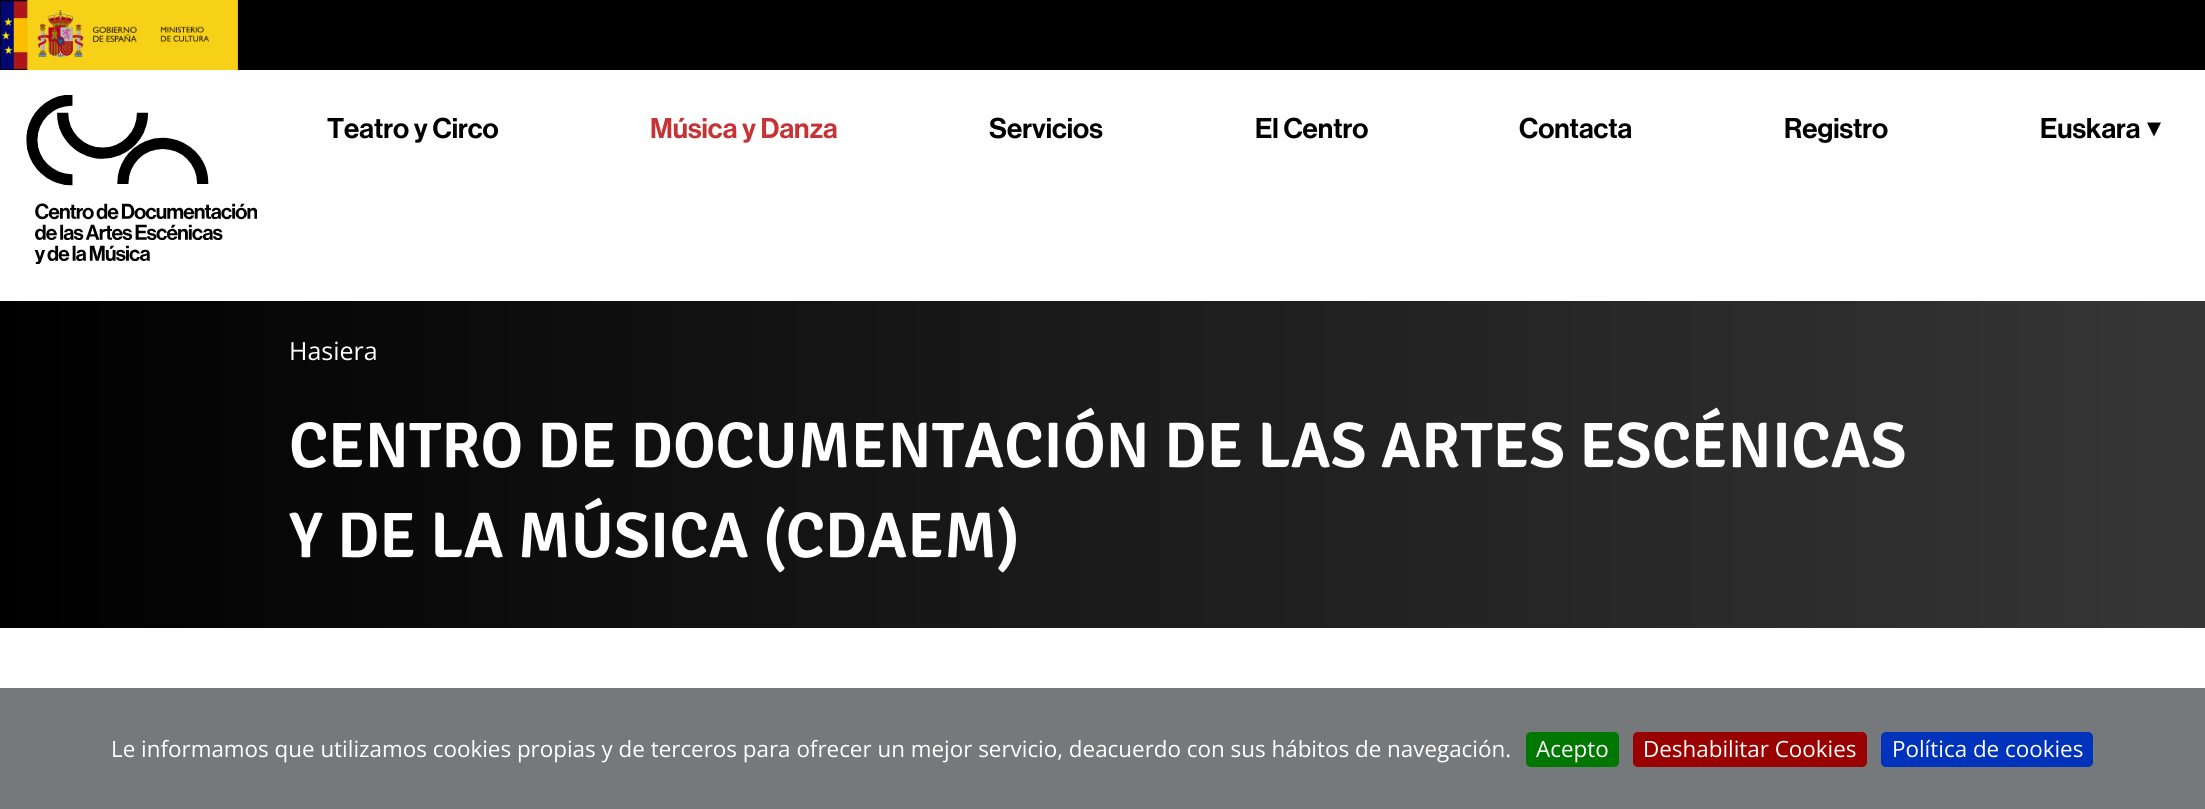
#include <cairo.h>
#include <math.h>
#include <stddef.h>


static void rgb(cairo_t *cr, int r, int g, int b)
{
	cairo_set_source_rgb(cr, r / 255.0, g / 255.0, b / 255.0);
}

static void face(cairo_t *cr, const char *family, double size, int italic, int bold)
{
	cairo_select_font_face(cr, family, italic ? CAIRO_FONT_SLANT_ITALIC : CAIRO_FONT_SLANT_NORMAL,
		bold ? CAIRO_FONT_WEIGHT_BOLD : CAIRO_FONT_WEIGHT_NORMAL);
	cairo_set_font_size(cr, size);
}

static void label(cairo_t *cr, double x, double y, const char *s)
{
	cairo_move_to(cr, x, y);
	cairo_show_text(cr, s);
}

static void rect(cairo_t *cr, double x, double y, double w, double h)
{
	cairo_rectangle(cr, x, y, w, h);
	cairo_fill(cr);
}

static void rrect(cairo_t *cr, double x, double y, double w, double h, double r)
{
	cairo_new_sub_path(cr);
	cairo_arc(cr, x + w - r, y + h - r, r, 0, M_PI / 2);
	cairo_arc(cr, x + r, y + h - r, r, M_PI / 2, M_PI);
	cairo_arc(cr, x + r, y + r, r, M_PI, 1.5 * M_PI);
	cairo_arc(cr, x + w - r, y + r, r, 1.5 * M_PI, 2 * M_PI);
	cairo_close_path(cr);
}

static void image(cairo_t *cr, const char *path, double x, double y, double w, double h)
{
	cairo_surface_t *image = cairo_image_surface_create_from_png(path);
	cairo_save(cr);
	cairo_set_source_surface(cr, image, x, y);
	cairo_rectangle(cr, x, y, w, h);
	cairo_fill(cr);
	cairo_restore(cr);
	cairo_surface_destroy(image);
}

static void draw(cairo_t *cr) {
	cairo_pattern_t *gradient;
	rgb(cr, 255, 255, 255);
	cairo_paint(cr);
	rgb(cr, 0, 0, 0);
	rect(cr, 0, 0, 2205, 70);
	image(cr, "image0.png", 0, 0, 238, 70);
	image(cr, "image1.png", 26, 95, 231, 169);
	face(cr, "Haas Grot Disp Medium", 28, 0, 0);
	label(cr, 327, 138, "Teatro y Circo");
	rgb(cr, 198, 51, 52);
	label(cr, 650, 138, "Música y Danza");
	rgb(cr, 0, 0, 0);
	label(cr, 989, 138, "Servicios");
	label(cr, 1255, 138, "El Centro");
	label(cr, 1519, 138, "Contacta");
	label(cr, 1784, 138, "Registro");
	label(cr, 2040, 138, "Euskara");
	cairo_new_path(cr);
	cairo_move_to(cr, 2147, 122.5);
	cairo_line_to(cr, 2161, 122.5);
	cairo_line_to(cr, 2154, 136.5);
	cairo_close_path(cr);
	cairo_fill(cr);
	gradient = cairo_pattern_create_linear(0, 465, 2205, 465);
	cairo_pattern_add_color_stop_rgba(gradient, 0, 0, 0, 0, 1);
	cairo_pattern_add_color_stop_rgba(gradient, 1, 0.212, 0.212, 0.212, 1);
	cairo_set_source(cr, gradient);
	cairo_pattern_destroy(gradient);
	rect(cr, 0, 301, 2205, 327);
	face(cr, "Open Sans", 25, 0, 0);
	rgb(cr, 255, 255, 255);
	label(cr, 289, 360, "Hasiera");
	face(cr, "Signika SemiBold", 64.4, 0, 0);
	label(cr, 289, 467, "CENTRO DE DOCUMENTACIÓN DE LAS ARTES ESCÉNICAS");
	label(cr, 289, 557, "Y DE LA MÚSICA (CDAEM)");
	rgb(cr, 118, 121, 124);
	rect(cr, 0, 688, 2205, 121);
	face(cr, "Open Sans", 22.4, 0, 0);
	rgb(cr, 255, 255, 255);
	label(cr, 111, 757, "Le informamos que utilizamos cookies propias y de terceros para ofrecer un mejor servicio, deacuerdo con sus hábitos de navegación.");
	rgb(cr, 0, 119, 0);
	rrect(cr, 1526, 732, 93, 35, 5);
	cairo_fill(cr);
	rgb(cr, 255, 255, 255);
	label(cr, 1536, 757, "Acepto");
	rgb(cr, 153, 0, 0);
	rrect(cr, 1633, 732, 234, 35, 5);
	cairo_fill(cr);
	rgb(cr, 255, 255, 255);
	label(cr, 1643, 757, "Deshabilitar Cookies");
	rgb(cr, 0, 51, 187);
	rrect(cr, 1881, 732, 212, 35, 5);
	cairo_fill(cr);
	rgb(cr, 255, 255, 255);
	label(cr, 1892, 757, "Política de cookies");
}

int main(void) {
	cairo_surface_t *surface = cairo_image_surface_create(CAIRO_FORMAT_RGB24, 2205, 809);
	cairo_t *cr = cairo_create(surface);
	cairo_font_options_t *options = cairo_font_options_create();
	cairo_font_options_set_hint_metrics(options, CAIRO_HINT_METRICS_OFF);
	cairo_font_options_set_hint_style(options, CAIRO_HINT_STYLE_NONE);
	cairo_set_font_options(cr, options);
	cairo_set_miter_limit(cr, 4);
	draw(cr);
	cairo_surface_write_to_png(surface, "render.png");
	cairo_font_options_destroy(options);
	cairo_destroy(cr);
	cairo_surface_destroy(surface);
	return 0;
}
